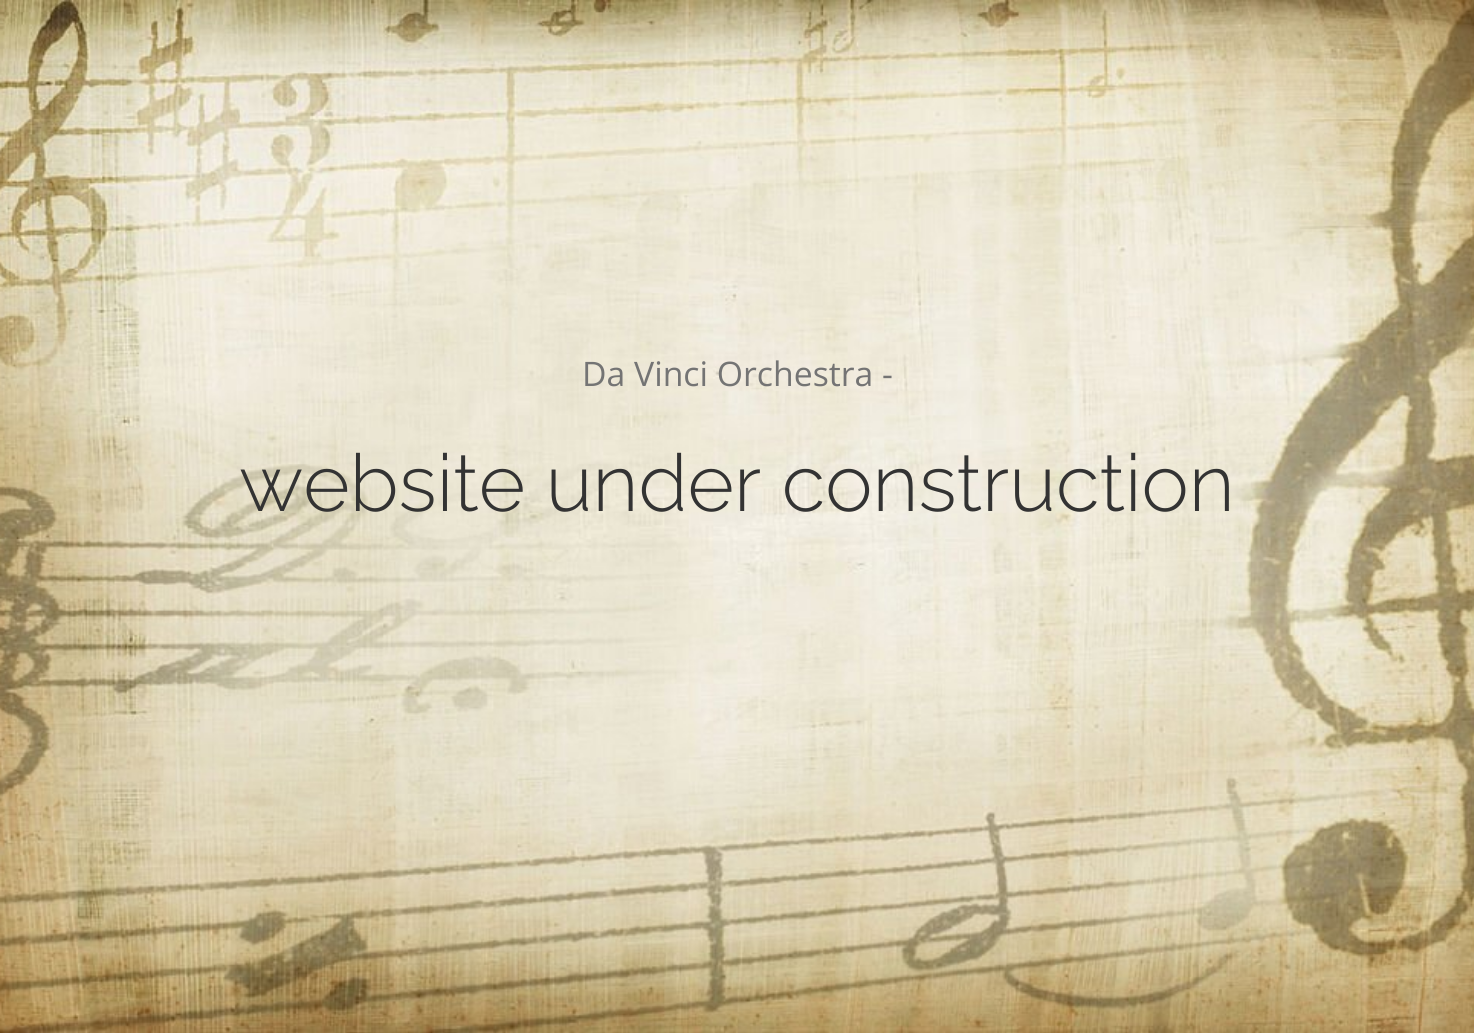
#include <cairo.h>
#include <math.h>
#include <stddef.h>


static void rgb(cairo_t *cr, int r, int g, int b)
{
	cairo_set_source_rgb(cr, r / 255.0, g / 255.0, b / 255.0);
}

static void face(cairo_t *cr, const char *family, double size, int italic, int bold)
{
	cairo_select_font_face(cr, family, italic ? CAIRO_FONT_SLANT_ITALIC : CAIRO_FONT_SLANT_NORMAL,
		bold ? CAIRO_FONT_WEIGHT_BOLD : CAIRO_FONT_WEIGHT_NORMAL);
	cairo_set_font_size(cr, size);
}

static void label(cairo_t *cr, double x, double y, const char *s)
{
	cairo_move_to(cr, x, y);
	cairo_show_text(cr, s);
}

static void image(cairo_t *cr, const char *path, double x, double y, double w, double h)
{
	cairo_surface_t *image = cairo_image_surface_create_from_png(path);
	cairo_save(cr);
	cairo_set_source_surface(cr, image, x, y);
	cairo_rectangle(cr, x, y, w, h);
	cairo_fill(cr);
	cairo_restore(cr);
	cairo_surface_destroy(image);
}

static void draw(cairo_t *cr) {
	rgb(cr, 255, 255, 255);
	cairo_paint(cr);
	image(cr, "image0.png", 0, 0, 1474, 1033);
	face(cr, "Open Sans", 33.75, 0, 0);
	rgb(cr, 116, 116, 116);
	label(cr, 582, 386, "Da Vinci Orchestra -");
	face(cr, "Raleway Thin", 79.75, 0, 0);
	rgb(cr, 51, 51, 51);
	label(cr, 239, 511, "website under construction");
}

int main(void) {
	cairo_surface_t *surface = cairo_image_surface_create(CAIRO_FORMAT_RGB24, 1474, 1033);
	cairo_t *cr = cairo_create(surface);
	cairo_font_options_t *options = cairo_font_options_create();
	cairo_font_options_set_hint_metrics(options, CAIRO_HINT_METRICS_OFF);
	cairo_font_options_set_hint_style(options, CAIRO_HINT_STYLE_NONE);
	cairo_set_font_options(cr, options);
	cairo_set_miter_limit(cr, 4);
	draw(cr);
	cairo_surface_write_to_png(surface, "render.png");
	cairo_font_options_destroy(options);
	cairo_destroy(cr);
	cairo_surface_destroy(surface);
	return 0;
}
